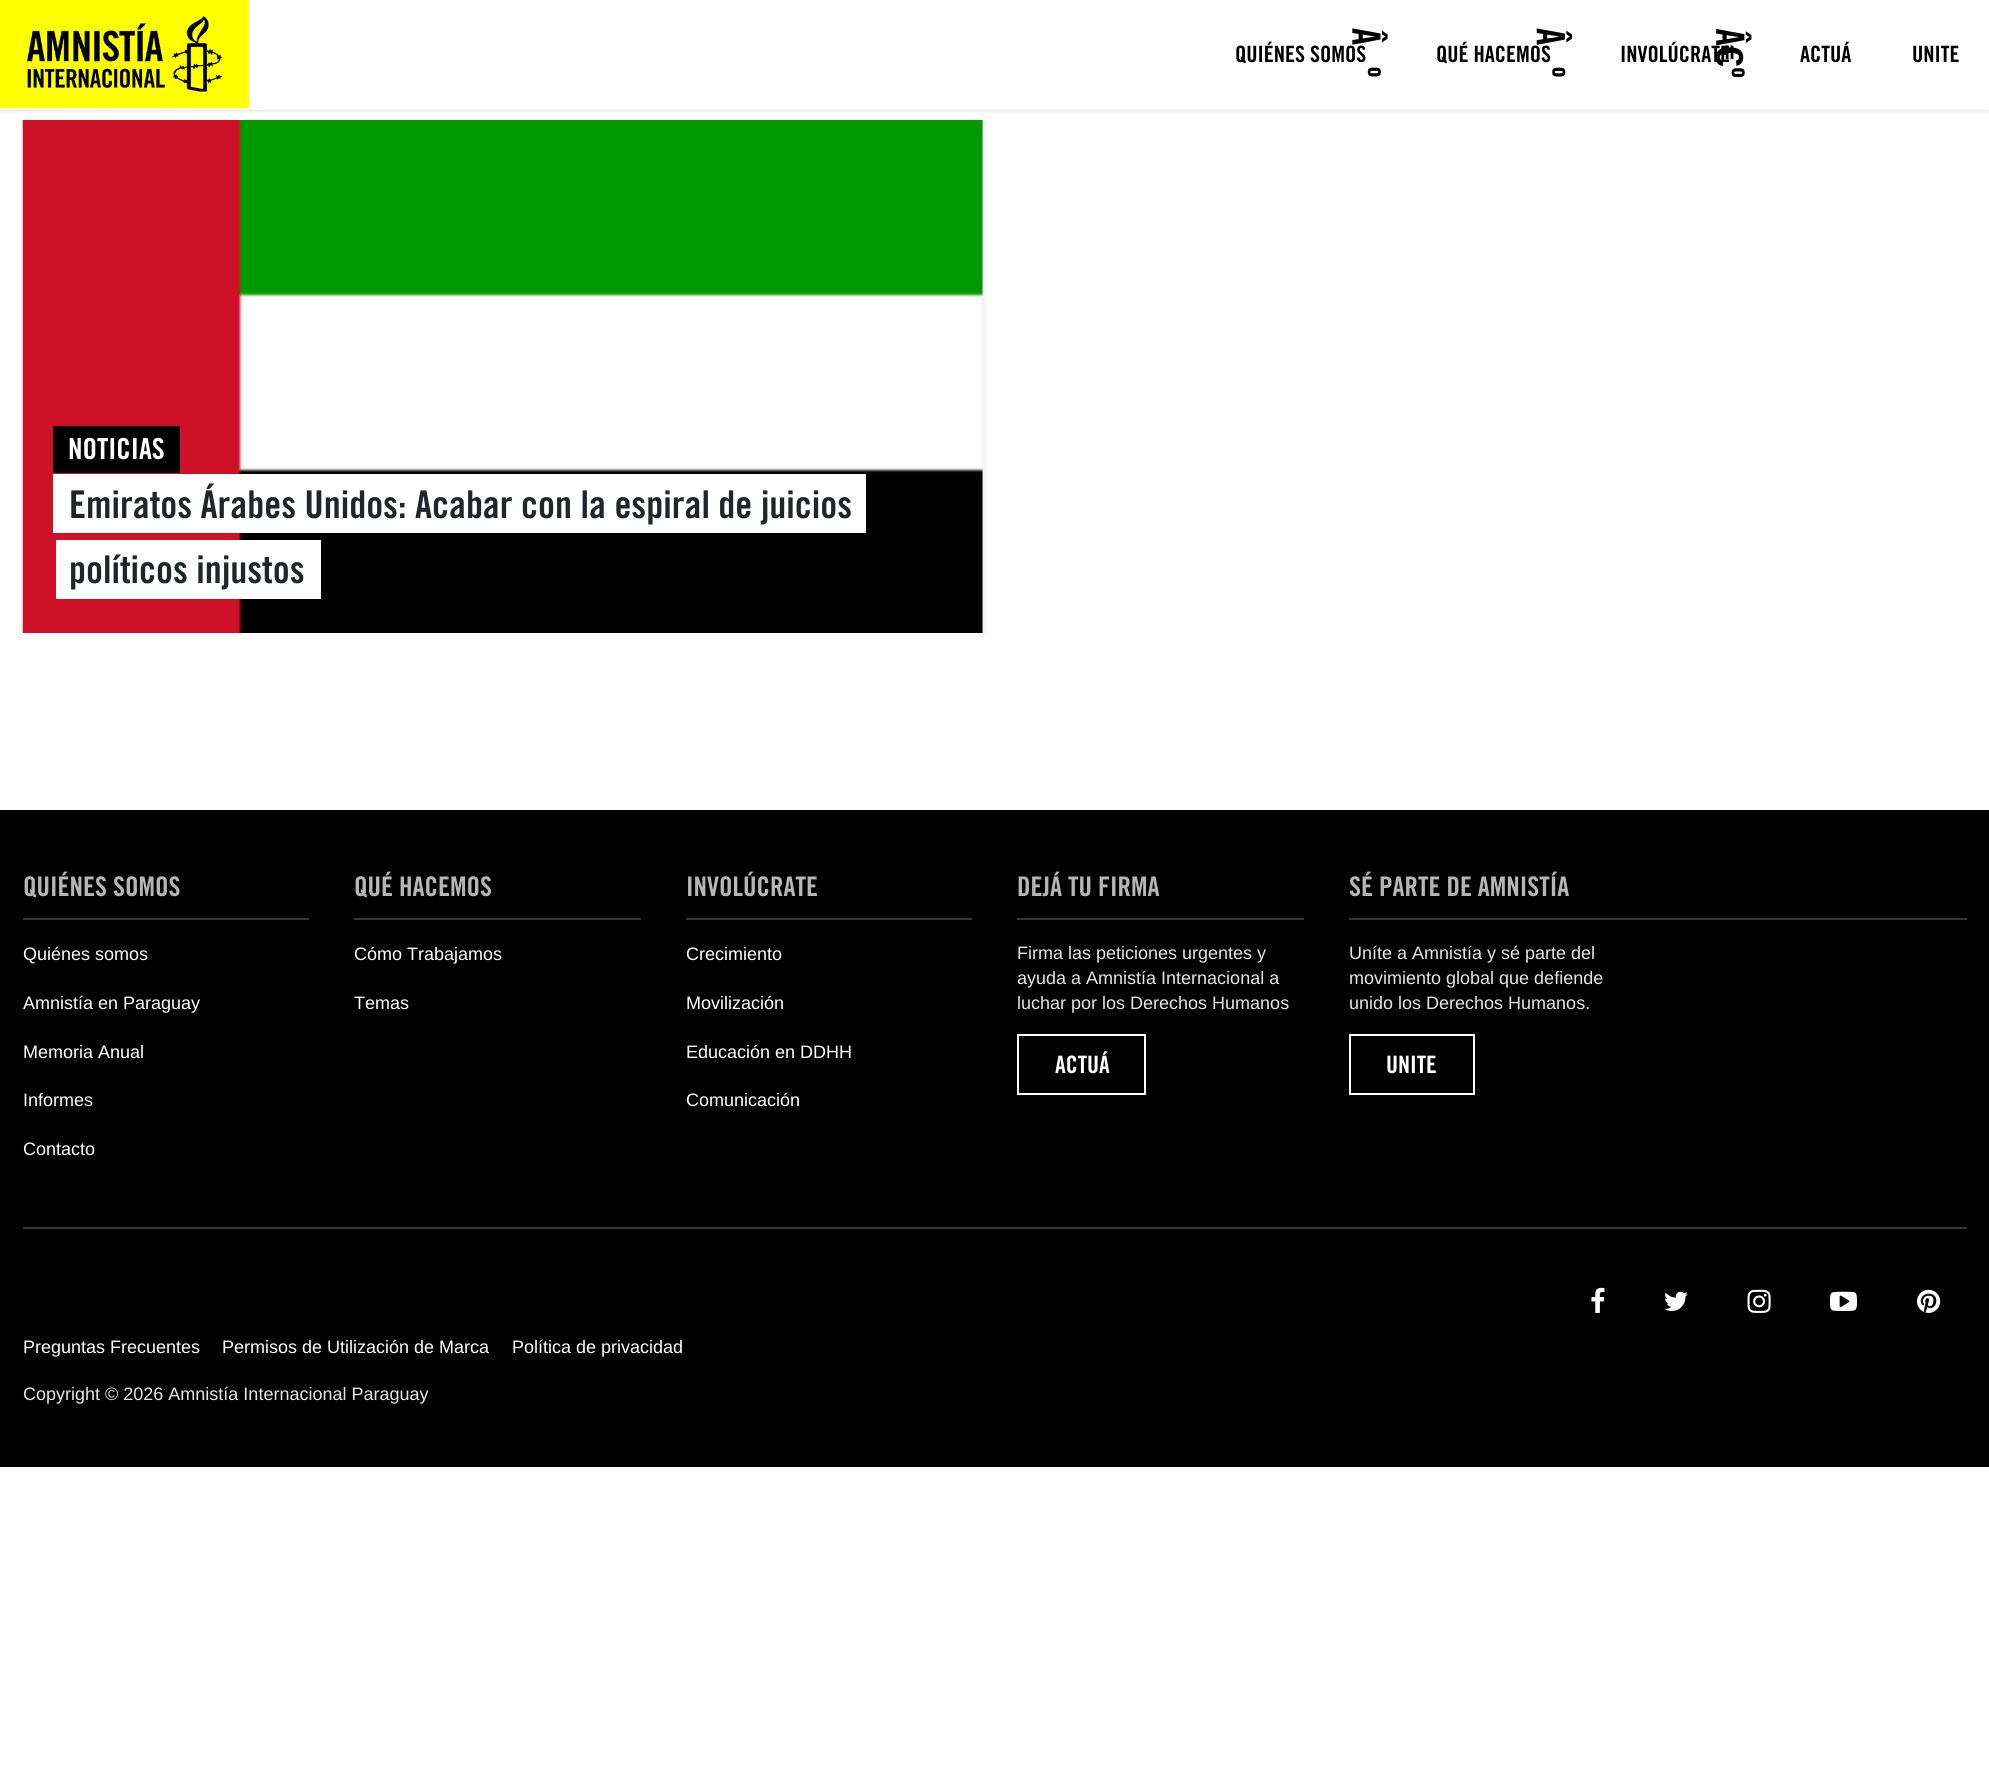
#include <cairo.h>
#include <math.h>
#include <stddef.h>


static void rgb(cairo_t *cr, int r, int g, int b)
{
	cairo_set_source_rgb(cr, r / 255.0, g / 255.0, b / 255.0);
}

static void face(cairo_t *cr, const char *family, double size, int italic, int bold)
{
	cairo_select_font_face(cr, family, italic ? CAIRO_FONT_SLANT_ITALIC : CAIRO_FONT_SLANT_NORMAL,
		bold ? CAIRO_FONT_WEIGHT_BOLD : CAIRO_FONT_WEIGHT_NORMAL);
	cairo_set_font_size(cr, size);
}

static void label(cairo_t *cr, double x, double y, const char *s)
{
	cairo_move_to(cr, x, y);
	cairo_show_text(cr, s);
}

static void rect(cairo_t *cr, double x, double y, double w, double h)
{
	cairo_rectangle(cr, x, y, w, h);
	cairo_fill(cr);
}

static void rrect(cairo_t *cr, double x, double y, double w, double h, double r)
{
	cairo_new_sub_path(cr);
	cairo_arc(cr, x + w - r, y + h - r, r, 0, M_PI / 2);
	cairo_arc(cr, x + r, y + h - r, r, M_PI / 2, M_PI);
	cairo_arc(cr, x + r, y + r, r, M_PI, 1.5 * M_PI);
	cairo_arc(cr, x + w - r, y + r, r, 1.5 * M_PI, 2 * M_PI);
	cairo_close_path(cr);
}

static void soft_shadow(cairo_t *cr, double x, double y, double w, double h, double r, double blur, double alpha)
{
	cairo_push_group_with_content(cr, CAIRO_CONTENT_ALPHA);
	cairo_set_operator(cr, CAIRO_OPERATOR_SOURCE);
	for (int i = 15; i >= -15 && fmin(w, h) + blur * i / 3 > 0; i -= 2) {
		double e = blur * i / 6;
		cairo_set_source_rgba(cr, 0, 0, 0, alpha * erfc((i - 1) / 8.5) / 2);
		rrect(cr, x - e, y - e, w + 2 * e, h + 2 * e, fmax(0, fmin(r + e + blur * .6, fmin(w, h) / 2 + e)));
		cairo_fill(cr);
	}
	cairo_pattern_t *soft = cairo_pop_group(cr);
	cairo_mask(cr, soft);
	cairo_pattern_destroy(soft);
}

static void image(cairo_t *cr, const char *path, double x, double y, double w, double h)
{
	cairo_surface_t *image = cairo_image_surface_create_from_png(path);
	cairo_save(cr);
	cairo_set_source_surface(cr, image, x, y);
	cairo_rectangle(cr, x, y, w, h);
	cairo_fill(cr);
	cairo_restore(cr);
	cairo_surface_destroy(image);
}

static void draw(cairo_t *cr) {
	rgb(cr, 255, 255, 255);
	cairo_paint(cr);
	rgb(cr, 0, 0, 0);
	soft_shadow(cr, 0, 0, 1989, 110, 0, 2, 0.2);
	rgb(cr, 255, 255, 255);
	rect(cr, 0, 0, 1989, 110);
	rgb(cr, 255, 255, 0);
	rect(cr, 0, 0, 249, 108);
	image(cr, "image0.png", 27, 16, 195, 76);
	face(cr, "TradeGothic", 22.5, 0, 1);
	rgb(cr, 0, 0, 0);
	label(cr, 1235, 62, "QUIÉNES SOMOS");
	image(cr, "image1.png", 1352, 28, 36, 17);
	image(cr, "image2.png", 1367, 67, 14, 10);
	label(cr, 1436, 62, "QUÉ HACEMOS");
	image(cr, "image3.png", 1536, 28, 36, 17);
	image(cr, "image4.png", 1552, 67, 14, 10);
	label(cr, 1620, 62, "INVOLÚCRATE");
	image(cr, "image5.png", 1716, 29, 36, 17);
	image(cr, "image6.png", 1731, 68, 14, 10);
	face(cr, "Liberation Sans", 39, 0, 1);
	cairo_save(cr);
	cairo_translate(cr, 1716, 45);
	cairo_rotate(cr, 90 * M_PI / 180);
	label(cr, 0, 0, "€");
	cairo_restore(cr);
	face(cr, "TradeGothic", 22.5, 0, 1);
	label(cr, 1800, 62, "ACTUÁ");
	label(cr, 1912, 62, "UNITE");
	cairo_save(cr);
	cairo_rectangle(cr, 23, 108, 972, 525);
	cairo_clip(cr);
	rgb(cr, 0, 0, 0);
	soft_shadow(cr, 23, 125, 960, 525, 0, 4, 0.1);
	cairo_restore(cr);
	rgb(cr, 229, 229, 229);
	rect(cr, 239, 120, 744, 513);
	image(cr, "image7.png", 22, 120, 961, 513);
	rgb(cr, 0, 0, 0);
	rect(cr, 53, 426, 127, 47);
	face(cr, "TradeGothic", 29, 0, 1);
	rgb(cr, 255, 255, 255);
	label(cr, 68, 459, "NOTICIAS");
	cairo_new_path(cr);
	cairo_move_to(cr, 53, 474);
	cairo_line_to(cr, 53, 533);
	cairo_line_to(cr, 839, 533);
	cairo_line_to(cr, 839, 532);
	cairo_line_to(cr, 66, 532);
	cairo_line_to(cr, 66, 474);
	cairo_close_path(cr);
	cairo_fill(cr);
	cairo_new_path(cr);
	cairo_move_to(cr, 80, 532);
	cairo_line_to(cr, 80, 533);
	cairo_line_to(cr, 866, 533);
	cairo_line_to(cr, 866, 474);
	cairo_line_to(cr, 852, 474);
	cairo_line_to(cr, 852, 532);
	cairo_close_path(cr);
	cairo_fill(cr);
	rect(cr, 66, 474, 786, 58);
	face(cr, "TradeGothic", 38.25, 0, 1);
	rgb(cr, 33, 37, 41);
	label(cr, 69, 518, "Emiratos Árabes Unidos: Acabar con la espiral de juicios");
	rgb(cr, 255, 255, 255);
	cairo_new_path(cr);
	cairo_move_to(cr, 56, 540);
	cairo_line_to(cr, 56, 599);
	cairo_line_to(cr, 294, 599);
	cairo_line_to(cr, 294, 598);
	cairo_line_to(cr, 69, 598);
	cairo_line_to(cr, 69, 540);
	cairo_close_path(cr);
	cairo_fill(cr);
	cairo_new_path(cr);
	cairo_move_to(cr, 83, 598);
	cairo_line_to(cr, 83, 599);
	cairo_line_to(cr, 321, 599);
	cairo_line_to(cr, 321, 540);
	cairo_line_to(cr, 308, 540);
	cairo_line_to(cr, 308, 598);
	cairo_close_path(cr);
	cairo_fill(cr);
	rect(cr, 69, 540, 239, 58);
	rgb(cr, 33, 37, 41);
	label(cr, 69, 583, "políticos injustos");
	rgb(cr, 0, 0, 0);
	rect(cr, 0, 810, 1989, 657);
	rgb(cr, 54, 54, 54);
	rect(cr, 23, 918, 286, 2);
	face(cr, "TradeGothic", 27, 0, 1);
	rgb(cr, 182, 182, 182);
	label(cr, 23, 896, "QUIÉNES SOMOS");
	face(cr, "Liberation Sans", 18, 0, 0);
	rgb(cr, 255, 255, 255);
	label(cr, 23, 960, "Quiénes somos");
	label(cr, 23, 1009, "Amnistía en Paraguay");
	label(cr, 23, 1058, "Memoria Anual");
	label(cr, 23, 1106, "Informes");
	label(cr, 23, 1155, "Contacto");
	rgb(cr, 54, 54, 54);
	rect(cr, 354, 918, 287, 2);
	face(cr, "TradeGothic", 27, 0, 1);
	rgb(cr, 182, 182, 182);
	label(cr, 354, 896, "QUÉ HACEMOS");
	face(cr, "Liberation Sans", 18, 0, 0);
	rgb(cr, 255, 255, 255);
	label(cr, 354, 960, "Cómo Trabajamos");
	label(cr, 354, 1009, "Temas");
	rgb(cr, 54, 54, 54);
	rect(cr, 686, 918, 286, 2);
	face(cr, "TradeGothic", 27, 0, 1);
	rgb(cr, 182, 182, 182);
	label(cr, 686, 896, "INVOLÚCRATE");
	face(cr, "Liberation Sans", 18, 0, 0);
	rgb(cr, 255, 255, 255);
	label(cr, 686, 960, "Crecimiento");
	label(cr, 686, 1009, "Movilización");
	label(cr, 686, 1058, "Educación en DDHH");
	label(cr, 686, 1106, "Comunicación");
	rgb(cr, 54, 54, 54);
	rect(cr, 1017, 918, 287, 2);
	face(cr, "TradeGothic", 27, 0, 1);
	rgb(cr, 182, 182, 182);
	label(cr, 1017, 896, "DEJÁ TU FIRMA");
	face(cr, "Liberation Sans", 18, 0, 0);
	rgb(cr, 230, 230, 230);
	label(cr, 1017, 959, "Firma las peticiones urgentes y");
	label(cr, 1017, 984, "ayuda a Amnistía Internacional a");
	label(cr, 1017, 1009, "luchar por los Derechos Humanos");
	cairo_rectangle(cr, 1018, 1035, 127, 59);
	rgb(cr, 255, 255, 255);
	cairo_stroke(cr);
	face(cr, "TradeGothic", 24, 0, 1);
	label(cr, 1055, 1073, "ACTUÁ");
	rgb(cr, 54, 54, 54);
	rect(cr, 1349, 918, 618, 2);
	face(cr, "TradeGothic", 27, 0, 1);
	rgb(cr, 182, 182, 182);
	label(cr, 1349, 896, "SÉ PARTE DE AMNISTÍA");
	face(cr, "Liberation Sans", 18, 0, 0);
	rgb(cr, 230, 230, 230);
	label(cr, 1349, 959, "Uníte a Amnistía y sé parte del");
	label(cr, 1349, 984, "movimiento global que defiende");
	label(cr, 1349, 1009, "unido los Derechos Humanos.");
	cairo_rectangle(cr, 1350, 1035, 124, 59);
	rgb(cr, 255, 255, 255);
	cairo_stroke(cr);
	face(cr, "TradeGothic", 24, 0, 1);
	label(cr, 1386, 1073, "UNITE");
	rgb(cr, 54, 54, 54);
	rect(cr, 23, 1227, 1944, 2);
	image(cr, "image8.png", 1591, 1287, 14, 26);
	image(cr, "image9.png", 1664, 1291, 24, 20);
	image(cr, "image10.png", 1747, 1289, 24, 24);
	image(cr, "image11.png", 1830, 1291, 27, 20);
	image(cr, "image12.png", 1917, 1289, 24, 24);
	face(cr, "Liberation Sans", 18, 0, 0);
	rgb(cr, 255, 255, 255);
	label(cr, 23, 1353, "Preguntas Frecuentes");
	label(cr, 222, 1353, "Permisos de Utilización de Marca");
	label(cr, 512, 1353, "Política de privacidad");
	rgb(cr, 230, 230, 230);
	label(cr, 23, 1400, "Copyright © 2026 Amnistía Internacional Paraguay");
}

int main(void) {
	cairo_surface_t *surface = cairo_image_surface_create(CAIRO_FORMAT_RGB24, 1989, 1768);
	cairo_t *cr = cairo_create(surface);
	cairo_font_options_t *options = cairo_font_options_create();
	cairo_font_options_set_hint_metrics(options, CAIRO_HINT_METRICS_OFF);
	cairo_font_options_set_hint_style(options, CAIRO_HINT_STYLE_NONE);
	cairo_set_font_options(cr, options);
	cairo_set_miter_limit(cr, 4);
	draw(cr);
	cairo_surface_write_to_png(surface, "render.png");
	cairo_font_options_destroy(options);
	cairo_destroy(cr);
	cairo_surface_destroy(surface);
	return 0;
}
